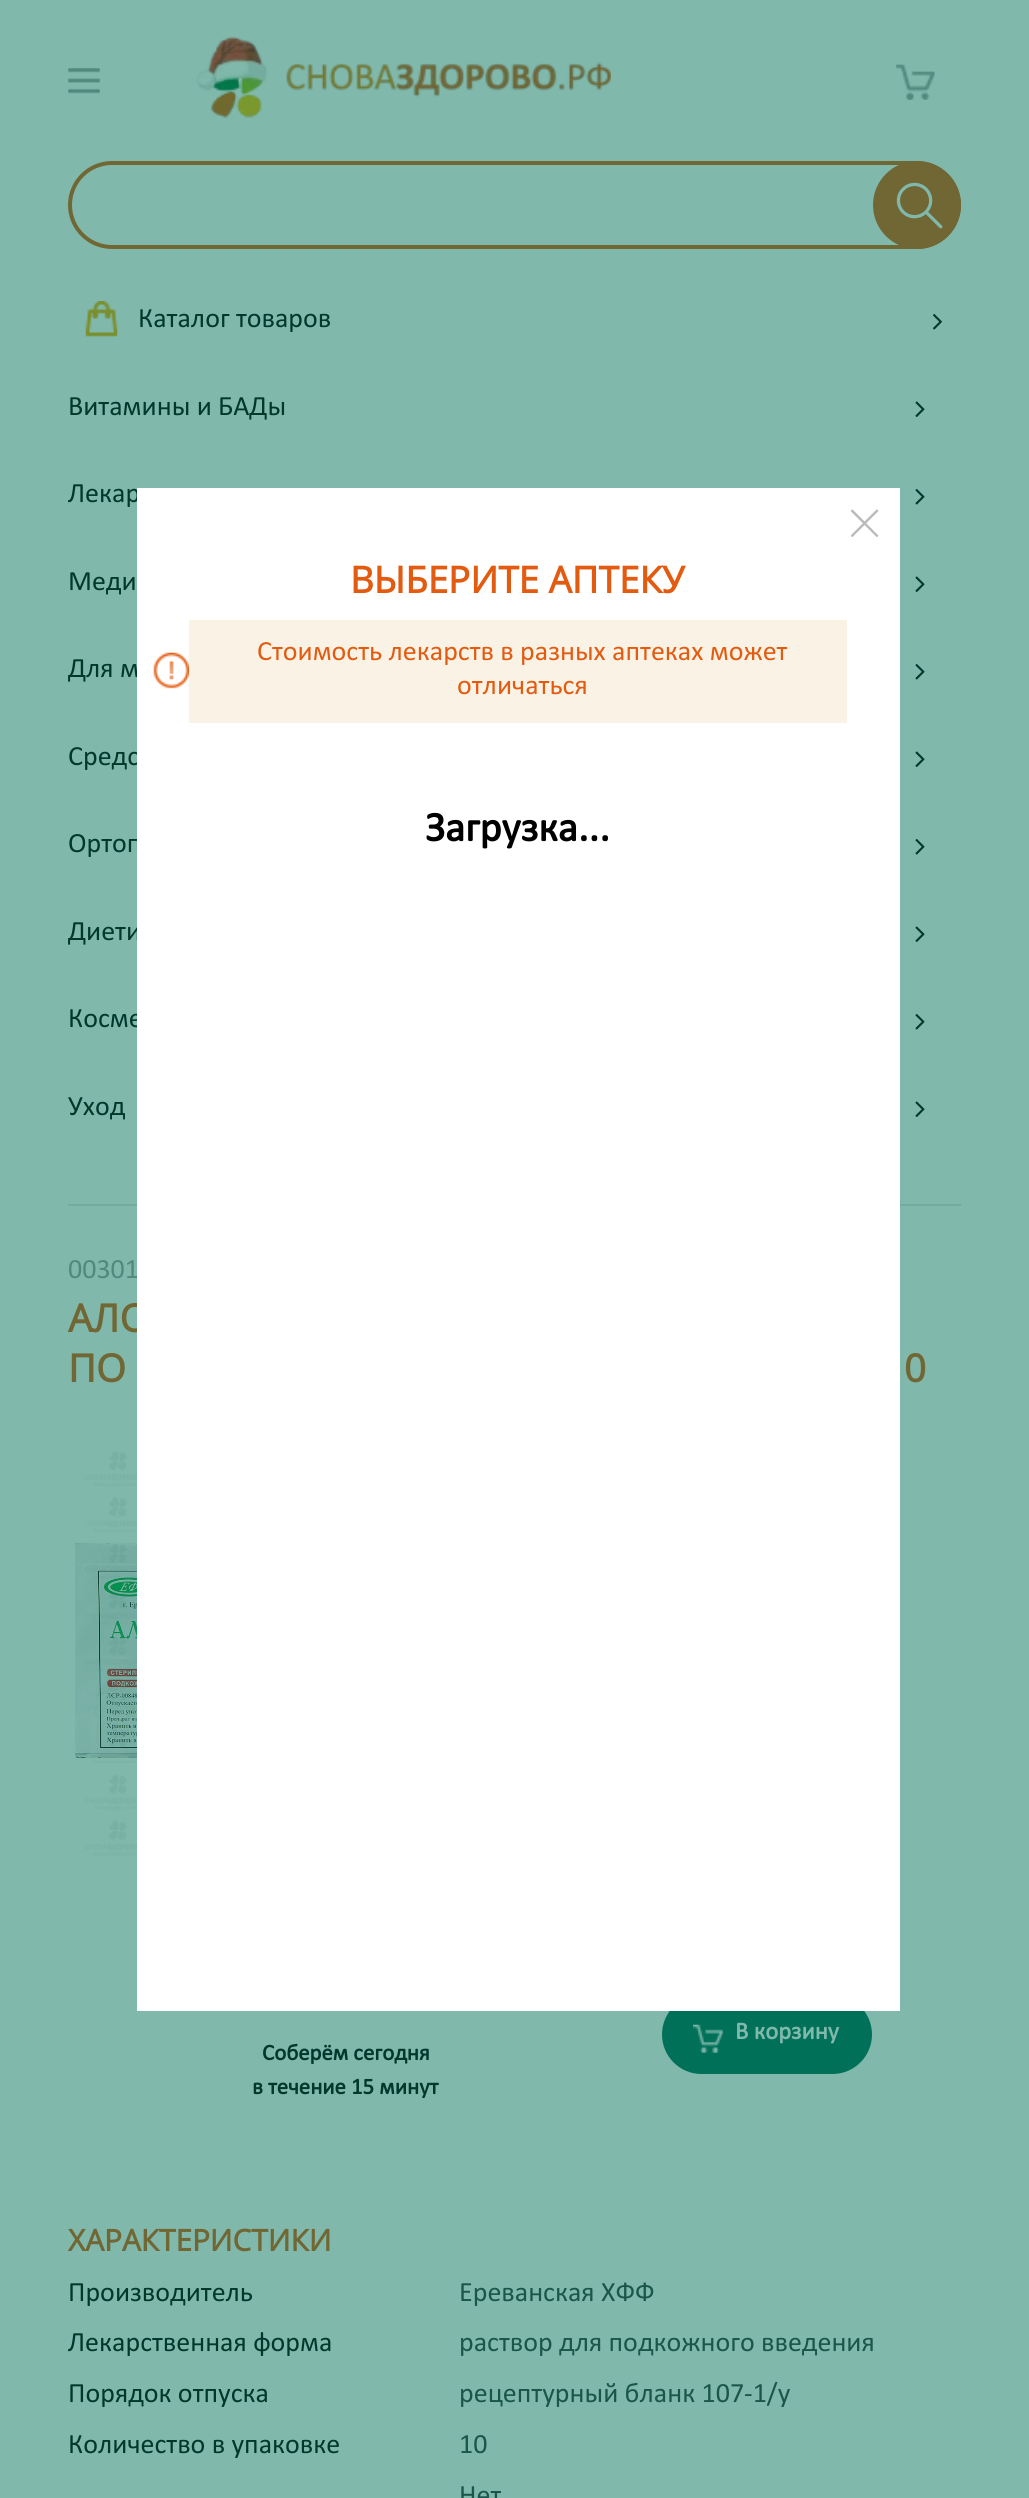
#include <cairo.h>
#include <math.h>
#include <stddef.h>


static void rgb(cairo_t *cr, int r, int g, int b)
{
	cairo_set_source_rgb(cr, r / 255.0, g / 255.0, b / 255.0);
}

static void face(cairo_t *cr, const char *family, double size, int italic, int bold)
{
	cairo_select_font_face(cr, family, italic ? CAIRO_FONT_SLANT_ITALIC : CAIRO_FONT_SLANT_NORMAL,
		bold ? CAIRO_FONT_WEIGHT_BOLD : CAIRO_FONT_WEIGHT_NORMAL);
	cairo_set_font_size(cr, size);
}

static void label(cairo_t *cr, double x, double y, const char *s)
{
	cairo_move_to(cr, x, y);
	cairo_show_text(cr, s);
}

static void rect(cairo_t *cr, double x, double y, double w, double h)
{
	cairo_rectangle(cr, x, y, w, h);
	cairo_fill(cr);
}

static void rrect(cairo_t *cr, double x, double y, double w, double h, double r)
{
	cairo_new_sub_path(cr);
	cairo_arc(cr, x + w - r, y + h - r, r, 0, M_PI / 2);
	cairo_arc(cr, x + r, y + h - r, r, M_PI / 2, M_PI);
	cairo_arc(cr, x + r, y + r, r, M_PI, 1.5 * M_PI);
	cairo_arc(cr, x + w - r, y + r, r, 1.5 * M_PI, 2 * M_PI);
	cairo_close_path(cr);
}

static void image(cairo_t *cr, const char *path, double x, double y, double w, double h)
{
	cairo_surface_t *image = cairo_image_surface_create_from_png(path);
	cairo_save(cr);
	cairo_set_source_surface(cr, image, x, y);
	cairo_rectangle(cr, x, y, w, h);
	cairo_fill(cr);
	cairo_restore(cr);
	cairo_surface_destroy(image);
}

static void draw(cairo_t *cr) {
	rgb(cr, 128, 184, 172);
	cairo_paint(cr);
	image(cr, "image0.png", 68, 68, 32, 26);
	image(cr, "image1.png", 196, 36, 415, 82);
	image(cr, "image2.png", 896, 64, 39, 36);
	rrect(cr, 70, 163, 889, 84, 42);
	rgb(cr, 113, 103, 53);
	cairo_set_line_width(cr, 4);
	cairo_stroke(cr);
	cairo_arc(cr, 917, 205, 44, 0, 2 * M_PI);
	cairo_fill(cr);
	image(cr, "image3.png", 896, 182, 47, 47);
	image(cr, "image4.png", 85, 301, 33, 36);
	face(cr, "Calibri", 28, 0, 0);
	rgb(cr, 0, 57, 44);
	label(cr, 138, 327, "Каталог товаров");
	image(cr, "image5.png", 933, 314, 9, 16);
	label(cr, 68, 415, "Витамины и БАДы");
	image(cr, "image6.png", 915, 401, 10, 16);
	label(cr, 68, 502, "Лекар");
	image(cr, "image7.png", 915, 489, 10, 16);
	label(cr, 68, 590, "Меди");
	image(cr, "image6.png", 915, 576, 10, 16);
	label(cr, 68, 677, "Для м");
	image(cr, "image7.png", 915, 664, 10, 16);
	label(cr, 68, 765, "Средс");
	image(cr, "image6.png", 915, 751, 10, 16);
	label(cr, 68, 852, "Ортоп");
	image(cr, "image7.png", 915, 839, 10, 16);
	label(cr, 68, 940, "Диети");
	image(cr, "image6.png", 915, 926, 10, 16);
	label(cr, 68, 1027, "Косме");
	image(cr, "image7.png", 915, 1014, 10, 16);
	label(cr, 68, 1115, "Уход");
	image(cr, "image6.png", 915, 1101, 10, 16);
	rgb(cr, 115, 171, 159);
	rect(cr, 68, 1204, 893, 2);
	rgb(cr, 81, 138, 125);
	label(cr, 68, 1278, "00301");
	face(cr, "Open Sans", 38.5, 0, 1);
	rgb(cr, 113, 103, 53);
	label(cr, 68, 1332, "АЛО");
	rgb(cr, 0, 113, 88);
	rrect(cr, 664, 1997, 206, 75, 37.5);
	cairo_fill_preserve(cr);
	cairo_stroke(cr);
	rgb(cr, 255, 255, 255);
	rect(cr, 137, 488, 763, 1523);
	image(cr, "image8.png", 851, 509, 28, 28);
	face(cr, "Open Sans", 36.75, 0, 1);
	rgb(cr, 226, 91, 17);
	label(cr, 350, 593, "ВЫБЕРИТЕ АПТЕКУ");
	rgb(cr, 250, 242, 228);
	rect(cr, 189, 620, 658, 103);
	image(cr, "image9.png", 153, 652, 36, 37);
	face(cr, "Calibri", 28, 0, 0);
	rgb(cr, 226, 91, 17);
	label(cr, 257, 660, "Стоимость лекарств в разных аптеках может");
	label(cr, 457, 694, "отличаться");
	face(cr, "Calibri", 42, 0, 1);
	rgb(cr, 0, 0, 0);
	label(cr, 425, 841, "Загрузка...");
	face(cr, "Open Sans", 38.5, 0, 1);
	rgb(cr, 113, 103, 53);
	label(cr, 68, 1382, "ПО");
	label(cr, 904, 1382, "0");
	image(cr, "image10.png", 75, 1451, 62, 405);
	image(cr, "image11.png", 693, 2024, 30, 29);
	face(cr, "Calibri", 24.5, 0, 1);
	rgb(cr, 128, 184, 172);
	label(cr, 735, 2039, "В корзину");
	face(cr, "Calibri", 22.75, 0, 1);
	rgb(cr, 0, 57, 44);
	label(cr, 262, 2060, "Соберём сегодня");
	label(cr, 252, 2094, "в течение 15 минут");
	face(cr, "Open Sans", 29.75, 0, 1);
	rgb(cr, 113, 103, 53);
	label(cr, 68, 2251, "ХАРАКТЕРИСТИКИ");
	face(cr, "Calibri", 28, 0, 0);
	rgb(cr, 0, 57, 44);
	label(cr, 68, 2301, "Производитель");
	rgb(cr, 26, 86, 76);
	label(cr, 459, 2301, "Ереванская ХФФ");
	rgb(cr, 0, 57, 44);
	label(cr, 68, 2351, "Лекарственная форма");
	rgb(cr, 26, 86, 76);
	label(cr, 459, 2351, "раствор для подкожного введения");
	rgb(cr, 0, 57, 44);
	label(cr, 68, 2402, "Порядок отпуска");
	rgb(cr, 26, 86, 76);
	label(cr, 459, 2402, "рецептурный бланк 107-1/у");
	rgb(cr, 0, 57, 44);
	label(cr, 68, 2453, "Количество в упаковке");
	rgb(cr, 26, 86, 76);
	label(cr, 459, 2453, "10");
	label(cr, 459, 2504, "Нет");
}

int main(void) {
	cairo_surface_t *surface = cairo_image_surface_create(CAIRO_FORMAT_RGB24, 1029, 2498);
	cairo_t *cr = cairo_create(surface);
	cairo_font_options_t *options = cairo_font_options_create();
	cairo_font_options_set_hint_metrics(options, CAIRO_HINT_METRICS_OFF);
	cairo_font_options_set_hint_style(options, CAIRO_HINT_STYLE_NONE);
	cairo_set_font_options(cr, options);
	cairo_set_miter_limit(cr, 4);
	draw(cr);
	cairo_surface_write_to_png(surface, "render.png");
	cairo_font_options_destroy(options);
	cairo_destroy(cr);
	cairo_surface_destroy(surface);
	return 0;
}
